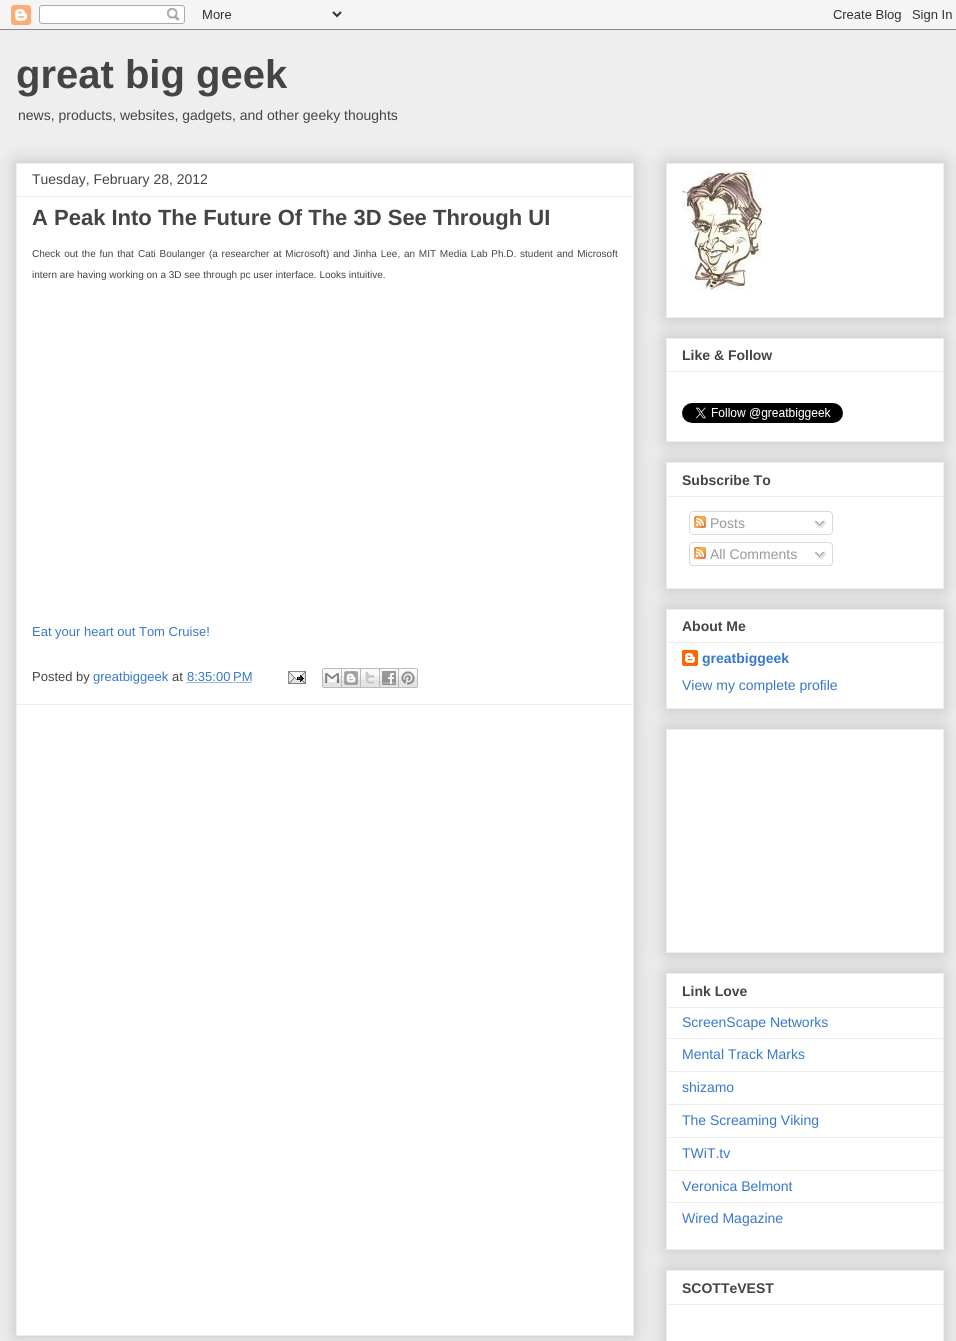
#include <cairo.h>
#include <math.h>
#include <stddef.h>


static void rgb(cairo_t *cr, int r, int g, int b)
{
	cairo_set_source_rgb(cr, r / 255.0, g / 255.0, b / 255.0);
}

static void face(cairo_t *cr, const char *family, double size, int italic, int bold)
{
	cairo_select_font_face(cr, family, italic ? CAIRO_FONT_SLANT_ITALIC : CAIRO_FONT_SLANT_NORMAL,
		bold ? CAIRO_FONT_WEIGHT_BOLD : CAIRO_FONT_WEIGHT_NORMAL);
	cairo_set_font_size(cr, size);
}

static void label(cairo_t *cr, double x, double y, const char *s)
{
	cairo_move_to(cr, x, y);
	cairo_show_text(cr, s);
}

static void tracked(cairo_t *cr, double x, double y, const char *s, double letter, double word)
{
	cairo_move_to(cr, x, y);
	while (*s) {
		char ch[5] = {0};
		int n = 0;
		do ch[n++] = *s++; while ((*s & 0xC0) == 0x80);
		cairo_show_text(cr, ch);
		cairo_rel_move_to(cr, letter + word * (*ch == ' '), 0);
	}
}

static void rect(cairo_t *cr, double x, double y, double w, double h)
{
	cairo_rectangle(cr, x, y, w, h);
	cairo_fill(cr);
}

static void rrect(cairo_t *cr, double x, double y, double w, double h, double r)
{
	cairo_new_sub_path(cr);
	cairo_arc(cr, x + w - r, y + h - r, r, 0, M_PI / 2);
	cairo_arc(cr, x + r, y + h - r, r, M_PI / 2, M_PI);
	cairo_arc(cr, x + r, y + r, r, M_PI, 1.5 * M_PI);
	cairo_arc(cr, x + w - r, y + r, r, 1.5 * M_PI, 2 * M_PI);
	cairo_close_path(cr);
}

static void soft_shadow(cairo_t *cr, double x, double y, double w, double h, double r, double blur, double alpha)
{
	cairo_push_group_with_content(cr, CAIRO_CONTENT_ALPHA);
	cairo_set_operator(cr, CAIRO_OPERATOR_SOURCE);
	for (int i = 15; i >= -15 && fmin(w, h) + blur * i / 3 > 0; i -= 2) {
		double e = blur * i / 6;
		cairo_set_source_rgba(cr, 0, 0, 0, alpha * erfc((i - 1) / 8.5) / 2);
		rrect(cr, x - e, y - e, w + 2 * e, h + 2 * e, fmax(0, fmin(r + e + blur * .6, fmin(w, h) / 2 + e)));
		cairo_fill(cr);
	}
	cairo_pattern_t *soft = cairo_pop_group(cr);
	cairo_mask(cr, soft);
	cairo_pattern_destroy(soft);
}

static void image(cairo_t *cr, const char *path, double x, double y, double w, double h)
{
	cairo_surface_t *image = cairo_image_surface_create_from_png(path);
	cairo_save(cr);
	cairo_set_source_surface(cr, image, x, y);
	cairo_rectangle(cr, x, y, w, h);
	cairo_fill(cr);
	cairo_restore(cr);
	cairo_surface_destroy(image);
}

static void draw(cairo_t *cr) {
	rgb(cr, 238, 238, 238);
	cairo_paint(cr);
	image(cr, "image0.png", 0, 0, 956, 30);
	face(cr, "Liberation Sans", 40, 0, 1);
	rgb(cr, 68, 68, 68);
	label(cr, 16, 88, "great big geek");
	face(cr, "Liberation Sans", 14, 0, 0);
	label(cr, 18, 120, "news, products, websites, gadgets, and other geeky thoughts");
	rgb(cr, 0, 0, 0);
	soft_shadow(cr, 16, 163, 618, 1173, 0, 10, 0.2);
	rgb(cr, 255, 255, 255);
	cairo_rectangle(cr, 16.5, 163.5, 617, 1172);
	cairo_fill_preserve(cr);
	rgb(cr, 238, 238, 238);
	cairo_set_line_width(cr, 1);
	cairo_stroke(cr);
	rgb(cr, 68, 68, 68);
	label(cr, 32, 184, "Tuesday, February 28, 2012");
	rgb(cr, 238, 238, 238);
	rect(cr, 17, 196, 616, 1);
	face(cr, "Liberation Sans", 22, 0, 1);
	rgb(cr, 68, 68, 68);
	label(cr, 32, 225, "A Peak Into The Future Of The 3D See Through UI");
	face(cr, "Liberation Sans", 10, 0, 0);
	tracked(cr, 32, 257, "Check out the fun that", 0, 1);
	tracked(cr, 138, 257, "Cati Boulanger (a researcher at Microsoft) and", 0, 1);
	tracked(cr, 353, 257, "Jinha Lee, an MIT Media Lab Ph.D. student and Microsoft", 0, 1);
	label(cr, 32, 278, "intern are having working on a 3D see through pc user interface. Looks intuitive.");
	face(cr, "Liberation Sans", 13, 0, 0);
	rgb(cr, 55, 120, 205);
	label(cr, 32, 636, "Eat your heart out Tom Cruise!");
	rgb(cr, 68, 68, 68);
	label(cr, 32, 681, "Posted by");
	rgb(cr, 55, 120, 205);
	label(cr, 93, 681, "greatbiggeek");
	rgb(cr, 68, 68, 68);
	label(cr, 172, 681, "at");
	rgb(cr, 55, 120, 205);
	label(cr, 187, 681, "8:35:00 PM");
	cairo_new_path(cr);
	cairo_move_to(cr, 186.5, 682.5);
	cairo_line_to(cr, 252, 682.5);
	cairo_set_dash(cr, (double[]){1, 1}, 2, 0);
	cairo_stroke(cr);
	image(cr, "image1.png", 288, 671, 18, 13);
	image(cr, "image2.png", 322, 668, 20, 20);
	image(cr, "image3.png", 342, 668, 19, 20);
	image(cr, "image4.png", 361, 668, 19, 20);
	image(cr, "image5.png", 380, 668, 19, 20);
	image(cr, "image6.png", 399, 668, 19, 20);
	rgb(cr, 238, 238, 238);
	rect(cr, 17, 704, 616, 1);
	rgb(cr, 0, 0, 0);
	soft_shadow(cr, 666, 163, 278, 155, 0, 10, 0.2);
	rgb(cr, 255, 255, 255);
	cairo_rectangle(cr, 666.5, 163.5, 277, 154);
	cairo_fill_preserve(cr);
	rgb(cr, 238, 238, 238);
	cairo_set_dash(cr, NULL, 0, 0);
	cairo_stroke(cr);
	image(cr, "image7.png", 682, 171, 85, 120);
	rgb(cr, 0, 0, 0);
	soft_shadow(cr, 666, 462, 278, 127, 0, 10, 0.2);
	rgb(cr, 255, 255, 255);
	cairo_rectangle(cr, 666.5, 462.5, 277, 126);
	cairo_fill_preserve(cr);
	rgb(cr, 238, 238, 238);
	cairo_stroke(cr);
	rgb(cr, 0, 0, 0);
	soft_shadow(cr, 666, 338, 278, 104, 0, 10, 0.2);
	rgb(cr, 255, 255, 255);
	cairo_rectangle(cr, 666.5, 338.5, 277, 103);
	cairo_fill_preserve(cr);
	rgb(cr, 238, 238, 238);
	cairo_stroke(cr);
	face(cr, "Liberation Sans", 14, 0, 1);
	rgb(cr, 68, 68, 68);
	label(cr, 682, 360, "Like & Follow");
	rgb(cr, 238, 238, 238);
	rect(cr, 667, 371, 276, 1);
	image(cr, "image8.png", 682, 403, 161, 20);
	rgb(cr, 68, 68, 68);
	label(cr, 682, 485, "Subscribe To");
	rgb(cr, 238, 238, 238);
	rect(cr, 667, 496, 276, 1);
	image(cr, "image9.png", 689, 511, 144, 21);
	image(cr, "image10.png", 694, 516, 12, 12);
	face(cr, "Liberation Sans", 14, 0, 0);
	rgb(cr, 153, 153, 153);
	label(cr, 710, 528, "Posts");
	image(cr, "image11.png", 814, 520, 13, 9);
	image(cr, "image12.png", 689, 532, 144, 3);
	image(cr, "image9.png", 689, 542, 144, 21);
	image(cr, "image10.png", 694, 547, 12, 12);
	label(cr, 710, 559, "All Comments");
	image(cr, "image11.png", 814, 551, 13, 9);
	image(cr, "image12.png", 689, 563, 144, 3);
	rgb(cr, 0, 0, 0);
	soft_shadow(cr, 666, 609, 278, 100, 0, 10, 0.2);
	rgb(cr, 255, 255, 255);
	cairo_rectangle(cr, 666.5, 609.5, 277, 99);
	cairo_fill_preserve(cr);
	rgb(cr, 238, 238, 238);
	cairo_stroke(cr);
	face(cr, "Liberation Sans", 14, 0, 1);
	rgb(cr, 68, 68, 68);
	label(cr, 682, 631, "About Me");
	rgb(cr, 238, 238, 238);
	rect(cr, 667, 642, 276, 1);
	image(cr, "image13.png", 682, 650, 16, 16);
	rgb(cr, 55, 120, 205);
	label(cr, 702, 663, "greatbiggeek");
	face(cr, "Liberation Sans", 14, 0, 0);
	label(cr, 682, 690, "View my complete profile");
	rgb(cr, 0, 0, 0);
	soft_shadow(cr, 666, 729, 278, 224, 0, 10, 0.2);
	rgb(cr, 255, 255, 255);
	cairo_rectangle(cr, 666.5, 729.5, 277, 223);
	cairo_fill_preserve(cr);
	rgb(cr, 238, 238, 238);
	cairo_stroke(cr);
	rgb(cr, 0, 0, 0);
	soft_shadow(cr, 666, 973, 278, 277, 0, 10, 0.2);
	rgb(cr, 255, 255, 255);
	cairo_rectangle(cr, 666.5, 973.5, 277, 276);
	cairo_fill_preserve(cr);
	rgb(cr, 238, 238, 238);
	cairo_stroke(cr);
	face(cr, "Liberation Sans", 14, 0, 1);
	rgb(cr, 68, 68, 68);
	label(cr, 682, 996, "Link Love");
	rgb(cr, 238, 238, 238);
	rect(cr, 667, 1007, 276, 1);
	face(cr, "Liberation Sans", 14, 0, 0);
	rgb(cr, 55, 120, 205);
	label(cr, 682, 1027, "ScreenScape Networks");
	rgb(cr, 238, 238, 238);
	rect(cr, 667, 1038, 276, 1);
	rgb(cr, 55, 120, 205);
	label(cr, 682, 1059, "Mental Track Marks");
	rgb(cr, 238, 238, 238);
	rect(cr, 667, 1071, 276, 1);
	rgb(cr, 55, 120, 205);
	label(cr, 682, 1092, "shizamo");
	rgb(cr, 238, 238, 238);
	rect(cr, 667, 1104, 276, 1);
	rgb(cr, 55, 120, 205);
	label(cr, 682, 1125, "The Screaming Viking");
	rgb(cr, 238, 238, 238);
	rect(cr, 667, 1137, 276, 1);
	rgb(cr, 55, 120, 205);
	label(cr, 682, 1158, "TWiT.tv");
	rgb(cr, 238, 238, 238);
	rect(cr, 667, 1170, 276, 1);
	rgb(cr, 55, 120, 205);
	label(cr, 682, 1191, "Veronica Belmont");
	rgb(cr, 238, 238, 238);
	rect(cr, 667, 1202, 276, 1);
	rgb(cr, 55, 120, 205);
	label(cr, 682, 1223, "Wired Magazine");
	rgb(cr, 0, 0, 0);
	soft_shadow(cr, 666, 1270, 278, 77, 0, 10, 0.2);
	rgb(cr, 255, 255, 255);
	cairo_rectangle(cr, 666.5, 1270.5, 277, 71);
	cairo_fill_preserve(cr);
	rgb(cr, 238, 238, 238);
	cairo_stroke(cr);
	face(cr, "Liberation Sans", 14, 0, 1);
	rgb(cr, 68, 68, 68);
	label(cr, 682, 1293, "SCOTTeVEST");
	rgb(cr, 238, 238, 238);
	rect(cr, 667, 1304, 276, 1);
}

int main(void) {
	cairo_surface_t *surface = cairo_image_surface_create(CAIRO_FORMAT_RGB24, 956, 1341);
	cairo_t *cr = cairo_create(surface);
	cairo_font_options_t *options = cairo_font_options_create();
	cairo_font_options_set_hint_metrics(options, CAIRO_HINT_METRICS_OFF);
	cairo_font_options_set_hint_style(options, CAIRO_HINT_STYLE_NONE);
	cairo_set_font_options(cr, options);
	cairo_set_miter_limit(cr, 4);
	draw(cr);
	cairo_surface_write_to_png(surface, "render.png");
	cairo_font_options_destroy(options);
	cairo_destroy(cr);
	cairo_surface_destroy(surface);
	return 0;
}
